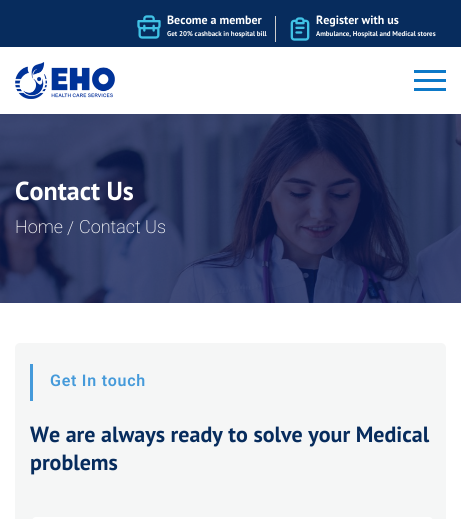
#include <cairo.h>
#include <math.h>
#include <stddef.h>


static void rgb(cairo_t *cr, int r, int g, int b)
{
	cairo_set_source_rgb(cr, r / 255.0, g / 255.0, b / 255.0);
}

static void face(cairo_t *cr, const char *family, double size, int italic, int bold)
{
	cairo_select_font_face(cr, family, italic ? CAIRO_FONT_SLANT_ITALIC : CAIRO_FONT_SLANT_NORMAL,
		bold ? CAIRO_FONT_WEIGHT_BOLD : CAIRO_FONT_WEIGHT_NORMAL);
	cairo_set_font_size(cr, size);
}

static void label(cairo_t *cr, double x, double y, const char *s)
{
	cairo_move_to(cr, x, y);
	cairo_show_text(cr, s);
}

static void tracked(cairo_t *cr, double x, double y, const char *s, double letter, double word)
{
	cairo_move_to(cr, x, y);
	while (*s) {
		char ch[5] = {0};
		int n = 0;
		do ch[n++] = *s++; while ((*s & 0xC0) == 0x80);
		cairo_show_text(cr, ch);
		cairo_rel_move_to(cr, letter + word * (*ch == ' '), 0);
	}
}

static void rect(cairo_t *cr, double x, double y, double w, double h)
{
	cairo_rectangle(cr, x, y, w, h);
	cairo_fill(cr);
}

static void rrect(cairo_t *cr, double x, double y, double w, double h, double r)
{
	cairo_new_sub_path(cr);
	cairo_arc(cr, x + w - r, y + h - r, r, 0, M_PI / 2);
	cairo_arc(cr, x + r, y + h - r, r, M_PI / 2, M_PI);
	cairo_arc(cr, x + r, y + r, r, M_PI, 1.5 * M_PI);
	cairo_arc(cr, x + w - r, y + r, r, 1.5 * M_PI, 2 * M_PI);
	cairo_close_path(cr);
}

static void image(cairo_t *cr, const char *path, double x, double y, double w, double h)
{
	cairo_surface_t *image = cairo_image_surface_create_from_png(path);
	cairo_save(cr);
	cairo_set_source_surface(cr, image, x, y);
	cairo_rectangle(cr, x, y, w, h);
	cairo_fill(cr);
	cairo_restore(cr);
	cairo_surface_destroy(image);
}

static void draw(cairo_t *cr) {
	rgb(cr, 255, 255, 255);
	cairo_paint(cr);
	rgb(cr, 7, 44, 93);
	rect(cr, 0, 0, 461, 47);
	image(cr, "image0.png", 137, 15, 24, 24);
	face(cr, "PT Sans", 12, 0, 1);
	rgb(cr, 255, 255, 255);
	label(cr, 167, 24, "Become a member");
	face(cr, "PT Sans", 7, 0, 1);
	label(cr, 167, 36, "Get 20% cashback in hospital bill");
	rgb(cr, 205, 205, 205);
	rect(cr, 275, 16, 1, 26);
	image(cr, "image1.png", 290, 17, 20, 24);
	face(cr, "PT Sans", 12, 0, 1);
	rgb(cr, 255, 255, 255);
	label(cr, 316, 24, "Register with us");
	face(cr, "PT Sans", 7, 0, 1);
	label(cr, 316, 36, "Ambulance, Hospital and Medical stores");
	image(cr, "image2.png", 15, 62, 100, 37);
	image(cr, "image3.png", 414, 70, 32, 21);
	image(cr, "image4.png", 0, 114, 461, 189);
	face(cr, "PT Sans", 26, 0, 1);
	label(cr, 15, 200, "Contact Us");
	face(cr, "Roboto ExtraLight", 18, 0, 0);
	label(cr, 15, 233, "Home");
	label(cr, 67, 234, "/");
	label(cr, 79, 233, "Contact Us");
	rgb(cr, 245, 246, 246);
	rrect(cr, 15, 343, 431, 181, 5);
	cairo_fill(cr);
	rgb(cr, 69, 154, 218);
	rect(cr, 30, 364, 3, 37);
	face(cr, "Roboto SemiBold", 16, 0, 0);
	tracked(cr, 50, 386, "Get In touch", 0.75, 0);
	face(cr, "PT Sans", 22, 0, 1);
	rgb(cr, 7, 44, 93);
	label(cr, 30, 442, "We are always ready to solve your Medical");
	label(cr, 30, 470, "problems");
	rgb(cr, 255, 255, 255);
	rrect(cr, 32, 517, 401, 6, 4);
	cairo_fill(cr);
}

int main(void) {
	cairo_surface_t *surface = cairo_image_surface_create(CAIRO_FORMAT_RGB24, 461, 519);
	cairo_t *cr = cairo_create(surface);
	cairo_font_options_t *options = cairo_font_options_create();
	cairo_font_options_set_hint_metrics(options, CAIRO_HINT_METRICS_OFF);
	cairo_font_options_set_hint_style(options, CAIRO_HINT_STYLE_NONE);
	cairo_set_font_options(cr, options);
	cairo_set_miter_limit(cr, 4);
	draw(cr);
	cairo_surface_write_to_png(surface, "render.png");
	cairo_font_options_destroy(options);
	cairo_destroy(cr);
	cairo_surface_destroy(surface);
	return 0;
}
